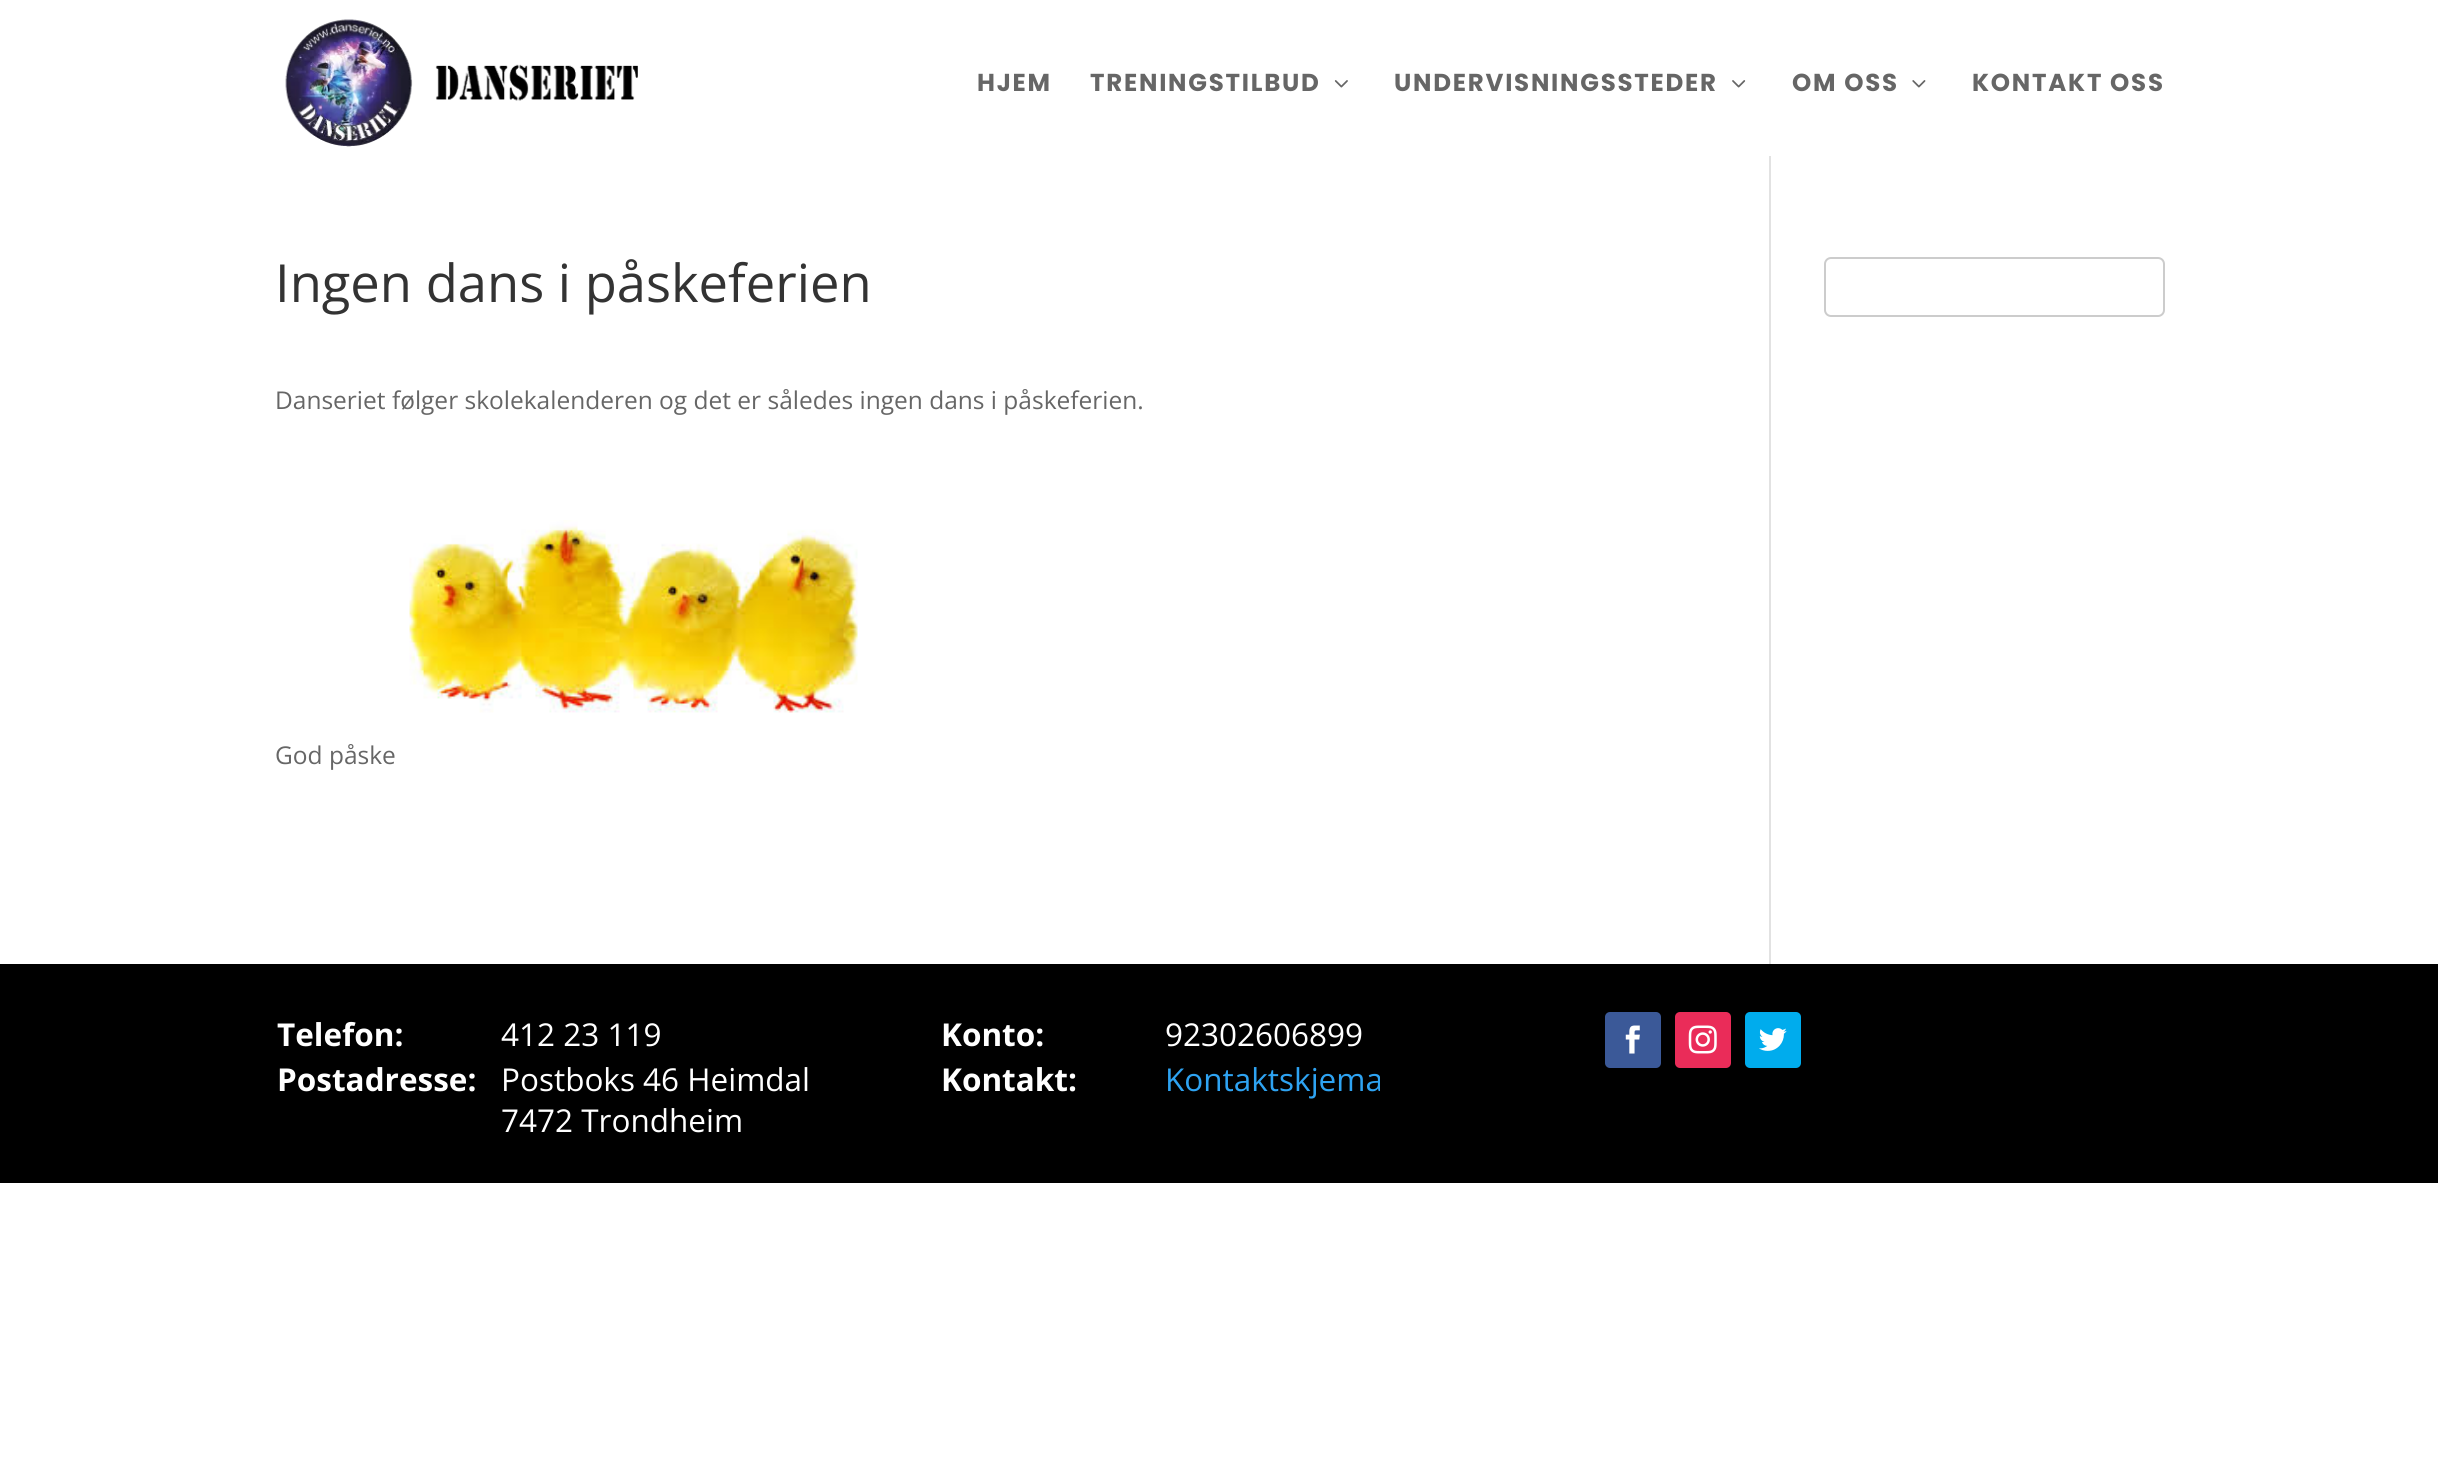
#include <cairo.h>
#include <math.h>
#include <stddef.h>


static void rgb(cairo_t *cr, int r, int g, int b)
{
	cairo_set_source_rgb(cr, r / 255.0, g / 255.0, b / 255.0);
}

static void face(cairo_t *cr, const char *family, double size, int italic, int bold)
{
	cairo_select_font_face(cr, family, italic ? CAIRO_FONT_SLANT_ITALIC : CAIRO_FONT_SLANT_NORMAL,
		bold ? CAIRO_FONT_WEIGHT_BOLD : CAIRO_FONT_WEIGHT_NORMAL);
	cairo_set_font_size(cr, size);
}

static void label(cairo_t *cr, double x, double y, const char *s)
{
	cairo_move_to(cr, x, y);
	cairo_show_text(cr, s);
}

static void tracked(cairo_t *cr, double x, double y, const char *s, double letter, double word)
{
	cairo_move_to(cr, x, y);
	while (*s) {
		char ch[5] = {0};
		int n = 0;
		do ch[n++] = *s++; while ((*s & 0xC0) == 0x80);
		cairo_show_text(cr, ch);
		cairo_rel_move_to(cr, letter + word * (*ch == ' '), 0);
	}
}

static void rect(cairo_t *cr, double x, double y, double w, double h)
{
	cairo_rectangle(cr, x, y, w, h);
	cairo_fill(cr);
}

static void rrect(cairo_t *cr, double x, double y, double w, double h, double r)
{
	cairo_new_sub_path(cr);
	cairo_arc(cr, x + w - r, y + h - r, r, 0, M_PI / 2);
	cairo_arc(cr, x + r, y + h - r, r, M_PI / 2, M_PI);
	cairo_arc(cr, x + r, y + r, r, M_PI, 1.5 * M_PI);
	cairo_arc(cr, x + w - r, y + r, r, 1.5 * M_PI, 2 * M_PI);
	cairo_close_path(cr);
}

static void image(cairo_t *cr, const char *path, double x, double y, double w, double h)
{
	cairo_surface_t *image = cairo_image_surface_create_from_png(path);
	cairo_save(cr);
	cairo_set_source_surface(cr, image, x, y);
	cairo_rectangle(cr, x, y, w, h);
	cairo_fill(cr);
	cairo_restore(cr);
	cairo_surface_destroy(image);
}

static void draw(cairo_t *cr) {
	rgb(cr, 255, 255, 255);
	cairo_paint(cr);
	image(cr, "image0.png", 285, 19, 353, 128);
	face(cr, "Poppins", 24.5, 0, 1);
	rgb(cr, 102, 102, 102);
	tracked(cr, 977, 91, "HJEM", 1.75, 0);
	tracked(cr, 1090, 91, "TRENINGSTILBUD", 1.75, 0);
	image(cr, "image1.png", 1334, 80, 14, 8);
	tracked(cr, 1394, 91, "UNDERVISNINGSSTEDER", 1.75, 0);
	image(cr, "image2.png", 1732, 80, 14, 8);
	tracked(cr, 1792, 91, "OM OSS", 1.75, 0);
	image(cr, "image3.png", 1912, 80, 14, 8);
	tracked(cr, 1972, 91, "KONTAKT OSS", 1.75, 0);
	face(cr, "Open Sans", 52.5, 0, 0);
	rgb(cr, 51, 51, 51);
	label(cr, 275, 302, "Ingen dans i påskeferien");
	face(cr, "Open Sans", 24.5, 0, 0);
	rgb(cr, 102, 102, 102);
	label(cr, 275, 409, "Danseriet følger skolekalenderen og det er således ingen dans i påskeferien.");
	image(cr, "image4.png", 409, 520, 449, 193);
	label(cr, 275, 764, "God påske");
	rrect(cr, 1825, 258, 339, 58, 6);
	rgb(cr, 204, 204, 204);
	cairo_stroke(cr);
	rgb(cr, 226, 226, 226);
	rect(cr, 1769, 156, 2, 808);
	rgb(cr, 0, 0, 0);
	rect(cr, 0, 964, 2438, 219);
	face(cr, "Open Sans", 31.5, 0, 1);
	rgb(cr, 255, 255, 255);
	label(cr, 277, 1046, "Telefon:");
	face(cr, "Open Sans", 31.5, 0, 0);
	label(cr, 501, 1046, "412 23 119");
	face(cr, "Open Sans", 31.5, 0, 1);
	label(cr, 277, 1091, "Postadresse:");
	face(cr, "Open Sans", 31.5, 0, 0);
	label(cr, 501, 1091, "Postboks 46 Heimdal");
	label(cr, 501, 1132, "7472 Trondheim");
	face(cr, "Open Sans", 31.5, 0, 1);
	label(cr, 941, 1046, "Konto:");
	face(cr, "Open Sans", 31.5, 0, 0);
	label(cr, 1165, 1046, "92302606899");
	face(cr, "Open Sans", 31.5, 0, 1);
	label(cr, 941, 1091, "Kontakt:");
	face(cr, "Open Sans", 31.5, 0, 0);
	rgb(cr, 46, 163, 242);
	label(cr, 1165, 1091, "Kontaktskjema");
	rgb(cr, 59, 89, 152);
	rrect(cr, 1605, 1012, 56, 56, 5);
	cairo_fill(cr);
	image(cr, "image5.png", 1625, 1025, 15, 29);
	rgb(cr, 234, 44, 89);
	rrect(cr, 1675, 1012, 56, 56, 5);
	cairo_fill(cr);
	image(cr, "image6.png", 1688, 1025, 29, 29);
	rgb(cr, 0, 172, 237);
	rrect(cr, 1745, 1012, 56, 56, 5);
	cairo_fill(cr);
	image(cr, "image7.png", 1759, 1028, 28, 23);
}

int main(void) {
	cairo_surface_t *surface = cairo_image_surface_create(CAIRO_FORMAT_RGB24, 2438, 1479);
	cairo_t *cr = cairo_create(surface);
	cairo_font_options_t *options = cairo_font_options_create();
	cairo_font_options_set_hint_metrics(options, CAIRO_HINT_METRICS_OFF);
	cairo_font_options_set_hint_style(options, CAIRO_HINT_STYLE_NONE);
	cairo_set_font_options(cr, options);
	cairo_set_miter_limit(cr, 4);
	draw(cr);
	cairo_surface_write_to_png(surface, "render.png");
	cairo_font_options_destroy(options);
	cairo_destroy(cr);
	cairo_surface_destroy(surface);
	return 0;
}
